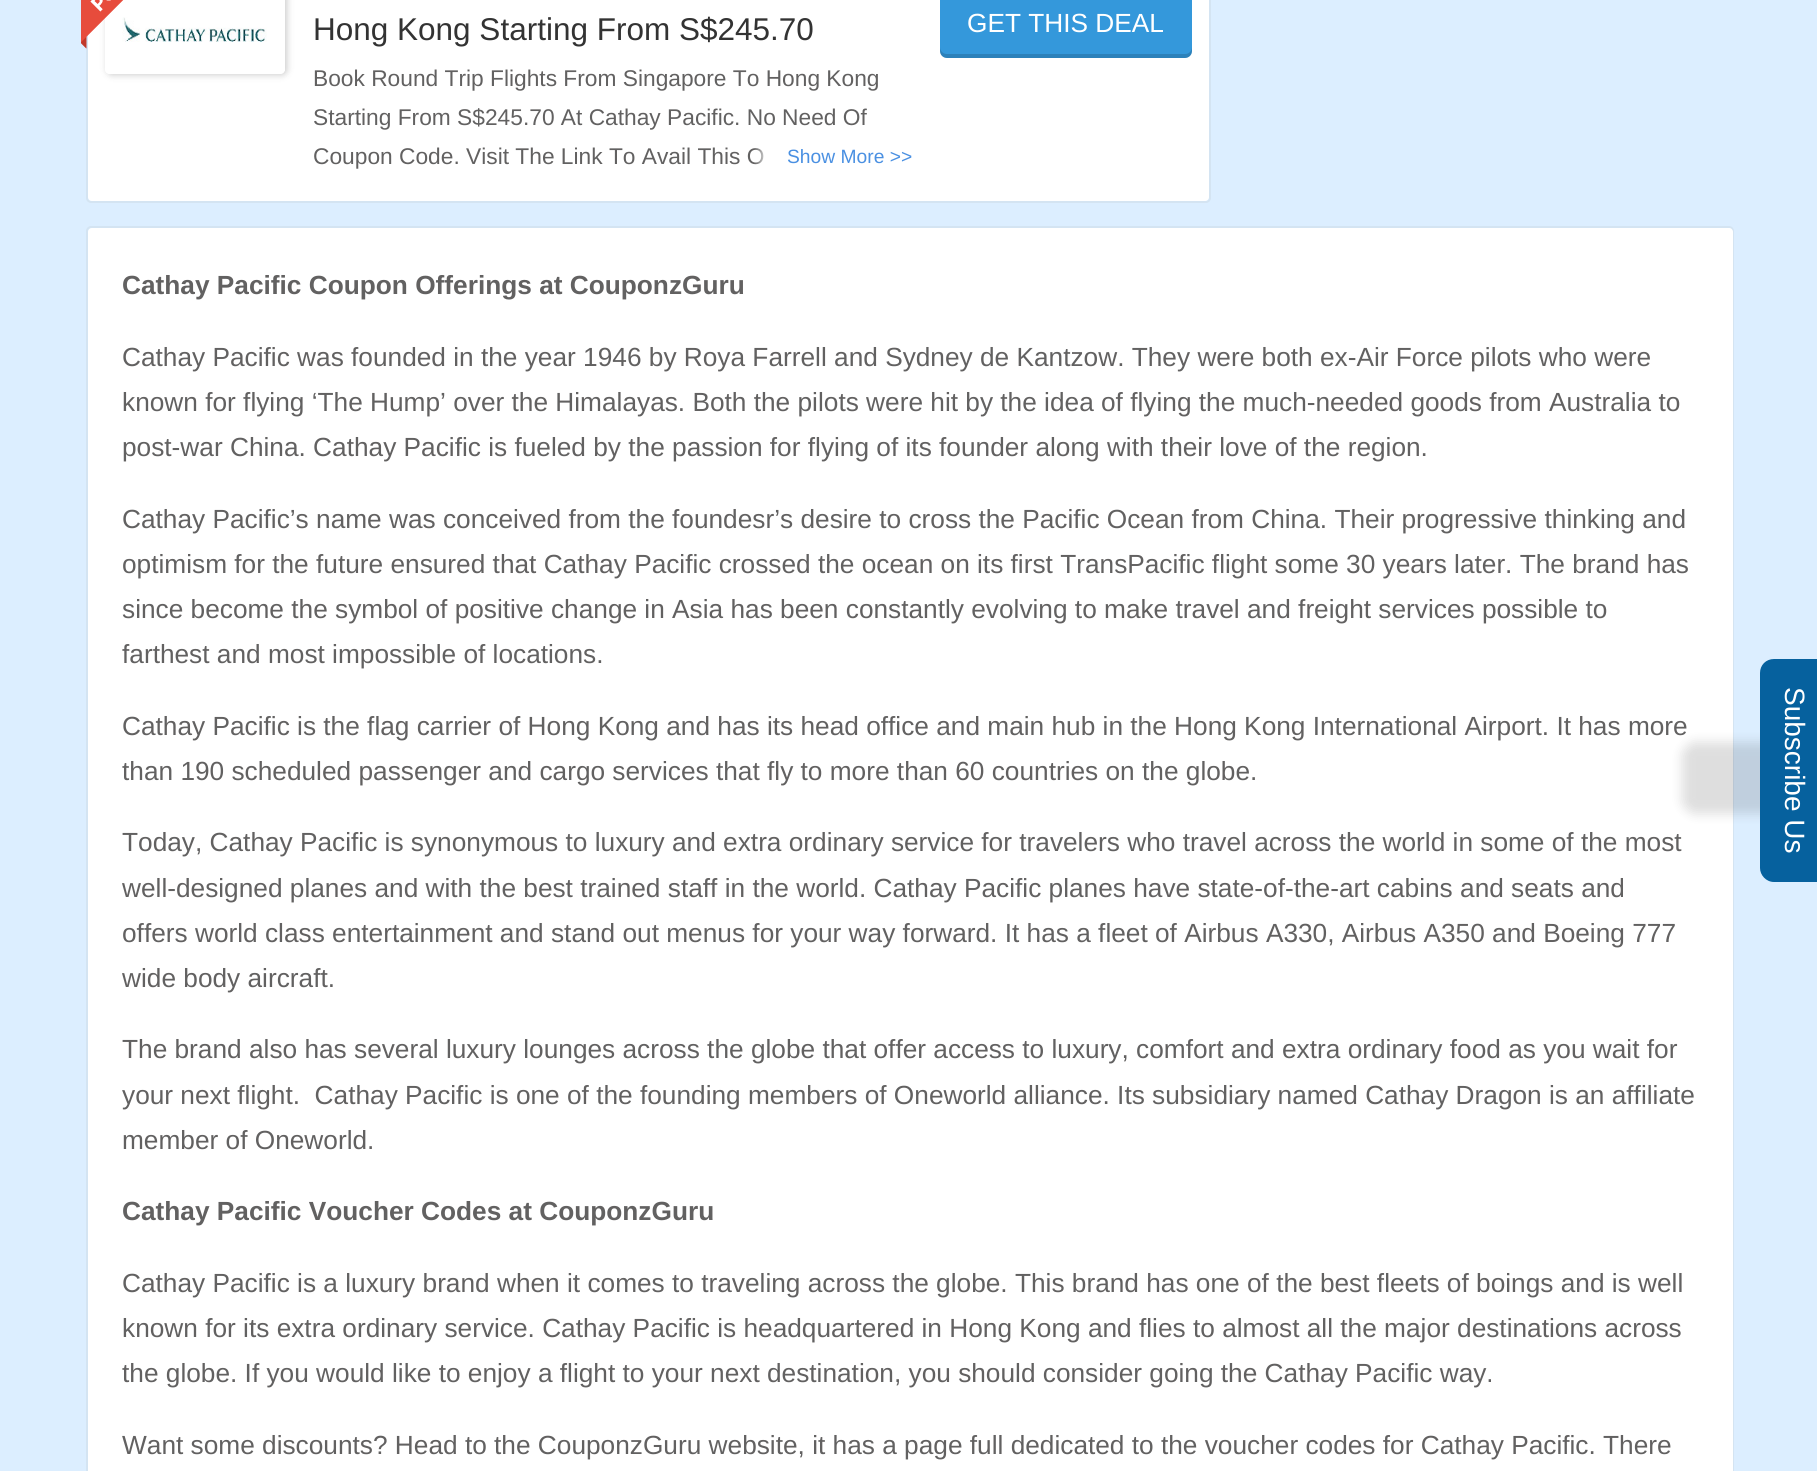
#include <cairo.h>
#include <math.h>
#include <stddef.h>


static void rgb(cairo_t *cr, int r, int g, int b)
{
	cairo_set_source_rgb(cr, r / 255.0, g / 255.0, b / 255.0);
}

static void face(cairo_t *cr, const char *family, double size, int italic, int bold)
{
	cairo_select_font_face(cr, family, italic ? CAIRO_FONT_SLANT_ITALIC : CAIRO_FONT_SLANT_NORMAL,
		bold ? CAIRO_FONT_WEIGHT_BOLD : CAIRO_FONT_WEIGHT_NORMAL);
	cairo_set_font_size(cr, size);
}

static void label(cairo_t *cr, double x, double y, const char *s)
{
	cairo_move_to(cr, x, y);
	cairo_show_text(cr, s);
}

static void rect(cairo_t *cr, double x, double y, double w, double h)
{
	cairo_rectangle(cr, x, y, w, h);
	cairo_fill(cr);
}

static void rrect(cairo_t *cr, double x, double y, double w, double h, double r)
{
	cairo_new_sub_path(cr);
	cairo_arc(cr, x + w - r, y + h - r, r, 0, M_PI / 2);
	cairo_arc(cr, x + r, y + h - r, r, M_PI / 2, M_PI);
	cairo_arc(cr, x + r, y + r, r, M_PI, 1.5 * M_PI);
	cairo_arc(cr, x + w - r, y + r, r, 1.5 * M_PI, 2 * M_PI);
	cairo_close_path(cr);
}

static void soft_shadow(cairo_t *cr, double x, double y, double w, double h, double r, double blur, double alpha)
{
	cairo_push_group_with_content(cr, CAIRO_CONTENT_ALPHA);
	cairo_set_operator(cr, CAIRO_OPERATOR_SOURCE);
	for (int i = 15; i >= -15 && fmin(w, h) + blur * i / 3 > 0; i -= 2) {
		double e = blur * i / 6;
		cairo_set_source_rgba(cr, 0, 0, 0, alpha * erfc((i - 1) / 8.5) / 2);
		rrect(cr, x - e, y - e, w + 2 * e, h + 2 * e, fmax(0, fmin(r + e + blur * .6, fmin(w, h) / 2 + e)));
		cairo_fill(cr);
	}
	cairo_pattern_t *soft = cairo_pop_group(cr);
	cairo_mask(cr, soft);
	cairo_pattern_destroy(soft);
}

static void image(cairo_t *cr, const char *path, double x, double y, double w, double h)
{
	cairo_surface_t *image = cairo_image_surface_create_from_png(path);
	cairo_save(cr);
	cairo_set_source_surface(cr, image, x, y);
	cairo_rectangle(cr, x, y, w, h);
	cairo_fill(cr);
	cairo_restore(cr);
	cairo_surface_destroy(image);
}

static void draw(cairo_t *cr) {
	cairo_pattern_t *gradient;
	rgb(cr, 220, 238, 255);
	cairo_paint(cr);
	rrect(cr, 87, -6, 1123, 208, 4);
	rgb(cr, 212, 228, 242);
	cairo_stroke(cr);
	rgb(cr, 255, 255, 255);
	rrect(cr, 88, -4, 1121, 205, 4);
	cairo_fill(cr);
	cairo_save(cr);
	cairo_set_fill_rule(cr, CAIRO_FILL_RULE_EVEN_ODD);
	cairo_new_path(cr);
	cairo_move_to(cr, 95, 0);
	cairo_line_to(cr, 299, 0);
	cairo_line_to(cr, 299, 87);
	cairo_line_to(cr, 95, 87);
	cairo_close_path(cr);
	cairo_move_to(cr, 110, -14);
	cairo_line_to(cr, 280, -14);
	cairo_curve_to(cr, 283, -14, 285, -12, 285, -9);
	cairo_line_to(cr, 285, 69);
	cairo_curve_to(cr, 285, 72, 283, 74, 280, 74);
	cairo_line_to(cr, 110, 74);
	cairo_curve_to(cr, 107, 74, 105, 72, 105, 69);
	cairo_line_to(cr, 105, -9);
	cairo_curve_to(cr, 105, -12, 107, -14, 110, -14);
	cairo_close_path(cr);
	cairo_clip(cr);
	rgb(cr, 0, 0, 0);
	soft_shadow(cr, 107, -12, 180, 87, 5, 3.5, 0.2);
	cairo_restore(cr);
	image(cr, "image1.png", 122, 17, 163, 54);
	image(cr, "image0.png", 81, 0, 43, 49);
	face(cr, "Liberation Sans", 31.5, 0, 0);
	rgb(cr, 51, 51, 51);
	label(cr, 313, 40, "Hong Kong Starting From S$245.70");
	face(cr, "Liberation Sans", 22.75, 0, 0);
	rgb(cr, 98, 97, 97);
	label(cr, 313, 86, "Book Round Trip Flights From Singapore To Hong Kong");
	label(cr, 313, 125, "Starting From S$245.70 At Cathay Pacific. No Need Of");
	label(cr, 313, 164, "Coupon Code. Visit The Link To Avail This O");
	gradient = cairo_pattern_create_linear(754, 153, 912, 153);
	cairo_pattern_add_color_stop_rgba(gradient, 0, 1, 1, 1, 0);
	cairo_pattern_add_color_stop_rgba(gradient, 0.1, 1, 1, 1, 1);
	cairo_set_source(cr, gradient);
	cairo_pattern_destroy(gradient);
	rect(cr, 754, 148, 10, 17);
	face(cr, "Liberation Sans", 19.25, 0, 0);
	rgb(cr, 74, 144, 226);
	label(cr, 787, 163, "Show More >>");
	rgb(cr, 52, 152, 219);
	rrect(cr, 940, -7, 252, 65, 7);
	cairo_fill(cr);
	cairo_set_source_rgba(cr, 0, 0, 0, 0.15);
	cairo_new_path(cr);
	cairo_move_to(cr, 940, 47);
	cairo_line_to(cr, 940, 51);
	cairo_curve_to(cr, 940, 55, 943, 58, 947, 58);
	cairo_line_to(cr, 1185, 58);
	cairo_curve_to(cr, 1189, 58, 1192, 55, 1192, 51);
	cairo_line_to(cr, 1192, 47);
	cairo_curve_to(cr, 1192, 51, 1189, 54, 1185, 54);
	cairo_line_to(cr, 947, 54);
	cairo_curve_to(cr, 943, 54, 940, 51, 940, 47);
	cairo_close_path(cr);
	cairo_fill(cr);
	face(cr, "Liberation Sans", 26.25, 0, 0);
	rgb(cr, 255, 255, 255);
	label(cr, 967, 32, "GET THIS DEAL");
	rrect(cr, 87, 227, 1646, 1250, 4);
	rgb(cr, 212, 228, 242);
	cairo_stroke(cr);
	rgb(cr, 255, 255, 255);
	rrect(cr, 88, 228, 1645, 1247, 4);
	cairo_fill(cr);
	face(cr, "Liberation Sans", 26.25, 0, 1);
	rgb(cr, 98, 97, 97);
	label(cr, 122, 294, "Cathay Pacific Coupon Offerings at CouponzGuru");
	face(cr, "Liberation Sans", 26.25, 0, 0);
	label(cr, 122, 366, "Cathay Pacific was founded in the year 1946 by Roya Farrell and Sydney de Kantzow. They were both ex-Air Force pilots who were");
	label(cr, 122, 411, "known for flying ‘The Hump’ over the Himalayas. Both the pilots were hit by the idea of flying the much-needed goods from Australia to");
	label(cr, 122, 456, "post-war China. Cathay Pacific is fueled by the passion for flying of its founder along with their love of the region.");
	label(cr, 122, 528, "Cathay Pacific’s name was conceived from the foundesr’s desire to cross the Pacific Ocean from China. Their progressive thinking and");
	label(cr, 122, 573, "optimism for the future ensured that Cathay Pacific crossed the ocean on its first TransPacific flight some 30 years later. The brand has");
	label(cr, 122, 618, "since become the symbol of positive change in Asia has been constantly evolving to make travel and freight services possible to");
	label(cr, 122, 663, "farthest and most impossible of locations.");
	label(cr, 122, 735, "Cathay Pacific is the flag carrier of Hong Kong and has its head office and main hub in the Hong Kong International Airport. It has more");
	label(cr, 122, 780, "than 190 scheduled passenger and cargo services that fly to more than 60 countries on the globe.");
	label(cr, 122, 851, "Today, Cathay Pacific is synonymous to luxury and extra ordinary service for travelers who travel across the world in some of the most");
	label(cr, 122, 897, "well-designed planes and with the best trained staff in the world. Cathay Pacific planes have state-of-the-art cabins and seats and");
	label(cr, 122, 942, "offers world class entertainment and stand out menus for your way forward. It has a fleet of Airbus A330, Airbus A350 and Boeing 777");
	label(cr, 122, 987, "wide body aircraft.");
	label(cr, 122, 1058, "The brand also has several luxury lounges across the globe that offer access to luxury, comfort and extra ordinary food as you wait for");
	label(cr, 122, 1104, "your next flight.  Cathay Pacific is one of the founding members of Oneworld alliance. Its subsidiary named Cathay Dragon is an affiliate");
	label(cr, 122, 1149, "member of Oneworld.");
	face(cr, "Liberation Sans", 26.25, 0, 1);
	label(cr, 122, 1220, "Cathay Pacific Voucher Codes at CouponzGuru");
	face(cr, "Liberation Sans", 26.25, 0, 0);
	label(cr, 122, 1292, "Cathay Pacific is a luxury brand when it comes to traveling across the globe. This brand has one of the best fleets of boings and is well");
	label(cr, 122, 1337, "known for its extra ordinary service. Cathay Pacific is headquartered in Hong Kong and flies to almost all the major destinations across");
	label(cr, 122, 1382, "the globe. If you would like to enjoy a flight to your next destination, you should consider going the Cathay Pacific way.");
	label(cr, 122, 1454, "Want some discounts? Head to the CouponzGuru website, it has a page full dedicated to the voucher codes for Cathay Pacific. There");
	rgb(cr, 0, 0, 0);
	soft_shadow(cr, 1682, 742, 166, 72, 14, 5.5, 0.13);
	rgb(cr, 6, 97, 158);
	cairo_new_path(cr);
	cairo_move_to(cr, 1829, 659);
	cairo_line_to(cr, 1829, 882);
	cairo_line_to(cr, 1774, 882);
	cairo_curve_to(cr, 1766, 882, 1760, 875, 1760, 868);
	cairo_line_to(cr, 1760, 673);
	cairo_curve_to(cr, 1760, 665, 1766, 659, 1774, 659);
	cairo_close_path(cr);
	cairo_fill(cr);
	face(cr, "Liberation Sans", 28, 0, 0);
	rgb(cr, 255, 255, 255);
	cairo_save(cr);
	cairo_translate(cr, 1785, 687);
	cairo_rotate(cr, 90 * M_PI / 180);
	label(cr, 0, 0, "Subscribe Us");
	cairo_restore(cr);
}

int main(void) {
	cairo_surface_t *surface = cairo_image_surface_create(CAIRO_FORMAT_RGB24, 1817, 1471);
	cairo_t *cr = cairo_create(surface);
	cairo_font_options_t *options = cairo_font_options_create();
	cairo_font_options_set_hint_metrics(options, CAIRO_HINT_METRICS_OFF);
	cairo_font_options_set_hint_style(options, CAIRO_HINT_STYLE_NONE);
	cairo_set_font_options(cr, options);
	cairo_set_miter_limit(cr, 4);
	draw(cr);
	cairo_surface_write_to_png(surface, "render.png");
	cairo_font_options_destroy(options);
	cairo_destroy(cr);
	cairo_surface_destroy(surface);
	return 0;
}
